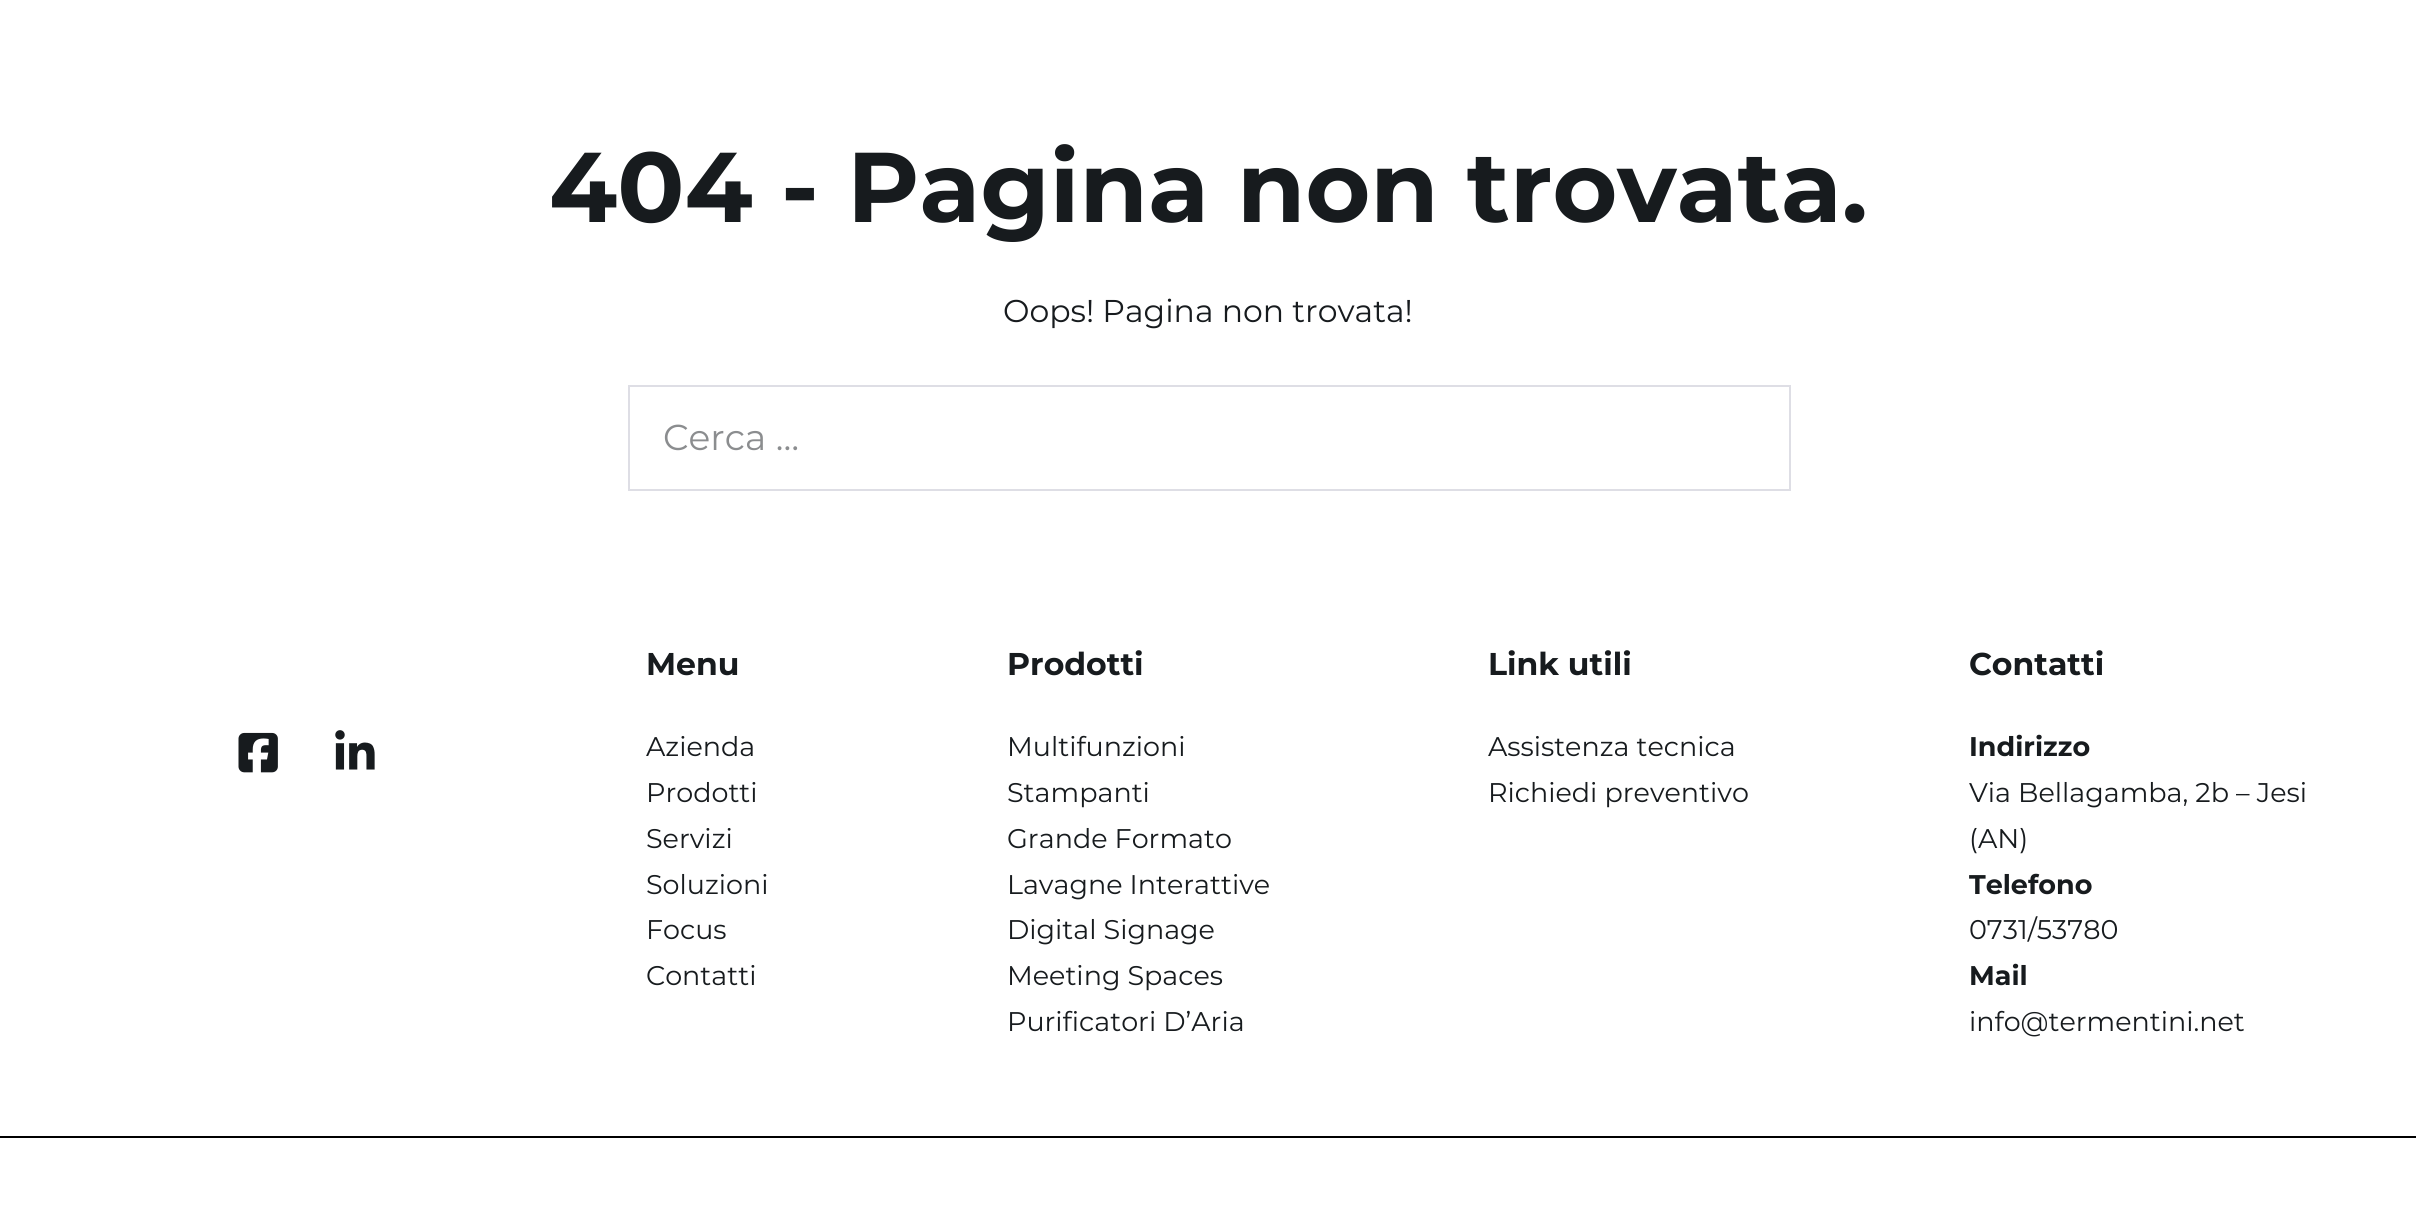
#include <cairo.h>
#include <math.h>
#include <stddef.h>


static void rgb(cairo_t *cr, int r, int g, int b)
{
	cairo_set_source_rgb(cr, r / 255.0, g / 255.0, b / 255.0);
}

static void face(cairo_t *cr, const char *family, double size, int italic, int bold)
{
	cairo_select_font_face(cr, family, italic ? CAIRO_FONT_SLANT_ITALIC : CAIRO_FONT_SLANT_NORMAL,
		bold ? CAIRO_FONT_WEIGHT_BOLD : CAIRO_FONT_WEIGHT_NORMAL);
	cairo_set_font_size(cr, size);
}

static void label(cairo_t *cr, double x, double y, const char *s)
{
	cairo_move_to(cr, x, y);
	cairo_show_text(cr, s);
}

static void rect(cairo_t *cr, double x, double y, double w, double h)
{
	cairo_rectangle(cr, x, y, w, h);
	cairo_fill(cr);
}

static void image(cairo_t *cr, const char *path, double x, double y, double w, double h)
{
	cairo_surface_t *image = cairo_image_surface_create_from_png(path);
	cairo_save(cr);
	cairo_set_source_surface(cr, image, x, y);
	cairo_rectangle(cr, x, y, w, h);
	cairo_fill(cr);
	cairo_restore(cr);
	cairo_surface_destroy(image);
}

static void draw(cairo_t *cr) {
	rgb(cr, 255, 255, 255);
	cairo_paint(cr);
	face(cr, "Montserrat", 99, 0, 1);
	rgb(cr, 23, 27, 30);
	label(cr, 549, 222, "404 - Pagina non trovata.");
	face(cr, "Montserrat", 31.5, 0, 0);
	label(cr, 1003, 322, "Oops! Pagina non trovata!");
	cairo_rectangle(cr, 629, 386, 1161, 104);
	rgb(cr, 222, 222, 229);
	cairo_stroke(cr);
	face(cr, "Montserrat", 36, 0, 0);
	rgb(cr, 139, 141, 143);
	label(cr, 663, 450, "Cerca …");
	rgb(cr, 0, 0, 0);
	rect(cr, 0, 1136, 2416, 2);
	image(cr, "image0.png", 238, 732, 40, 41);
	image(cr, "image1.png", 335, 730, 40, 40);
	face(cr, "Montserrat", 31.5, 0, 1);
	rgb(cr, 23, 27, 30);
	label(cr, 646, 675, "Menu");
	face(cr, "Montserrat", 27, 0, 0);
	label(cr, 646, 756, "Azienda");
	label(cr, 646, 802, "Prodotti");
	label(cr, 646, 848, "Servizi");
	label(cr, 646, 894, "Soluzioni");
	label(cr, 646, 939, "Focus");
	label(cr, 646, 985, "Contatti");
	face(cr, "Montserrat", 31.5, 0, 1);
	label(cr, 1007, 675, "Prodotti");
	face(cr, "Montserrat", 27, 0, 0);
	label(cr, 1007, 756, "Multifunzioni");
	label(cr, 1007, 802, "Stampanti");
	label(cr, 1007, 848, "Grande Formato");
	label(cr, 1007, 894, "Lavagne Interattive");
	label(cr, 1007, 939, "Digital Signage");
	label(cr, 1007, 985, "Meeting Spaces");
	label(cr, 1007, 1031, "Purificatori D’Aria");
	face(cr, "Montserrat", 31.5, 0, 1);
	label(cr, 1488, 675, "Link utili");
	face(cr, "Montserrat", 27, 0, 0);
	label(cr, 1488, 756, "Assistenza tecnica");
	label(cr, 1488, 802, "Richiedi preventivo");
	face(cr, "Montserrat", 31.5, 0, 1);
	label(cr, 1969, 675, "Contatti");
	face(cr, "Montserrat", 27, 0, 1);
	label(cr, 1969, 756, "Indirizzo");
	face(cr, "Montserrat", 27, 0, 0);
	label(cr, 1969, 802, "Via Bellagamba, 2b – Jesi");
	label(cr, 1969, 848, "(AN)");
	face(cr, "Montserrat", 27, 0, 1);
	label(cr, 1969, 894, "Telefono");
	face(cr, "Montserrat", 27, 0, 0);
	label(cr, 1969, 939, "0731/53780");
	face(cr, "Montserrat", 27, 0, 1);
	label(cr, 1969, 985, "Mail");
	face(cr, "Montserrat", 27, 0, 0);
	label(cr, 1969, 1031, "info@termentini.net");
}

int main(void) {
	cairo_surface_t *surface = cairo_image_surface_create(CAIRO_FORMAT_RGB24, 2416, 1210);
	cairo_t *cr = cairo_create(surface);
	cairo_font_options_t *options = cairo_font_options_create();
	cairo_font_options_set_hint_metrics(options, CAIRO_HINT_METRICS_OFF);
	cairo_font_options_set_hint_style(options, CAIRO_HINT_STYLE_NONE);
	cairo_set_font_options(cr, options);
	cairo_set_miter_limit(cr, 4);
	draw(cr);
	cairo_surface_write_to_png(surface, "render.png");
	cairo_font_options_destroy(options);
	cairo_destroy(cr);
	cairo_surface_destroy(surface);
	return 0;
}
